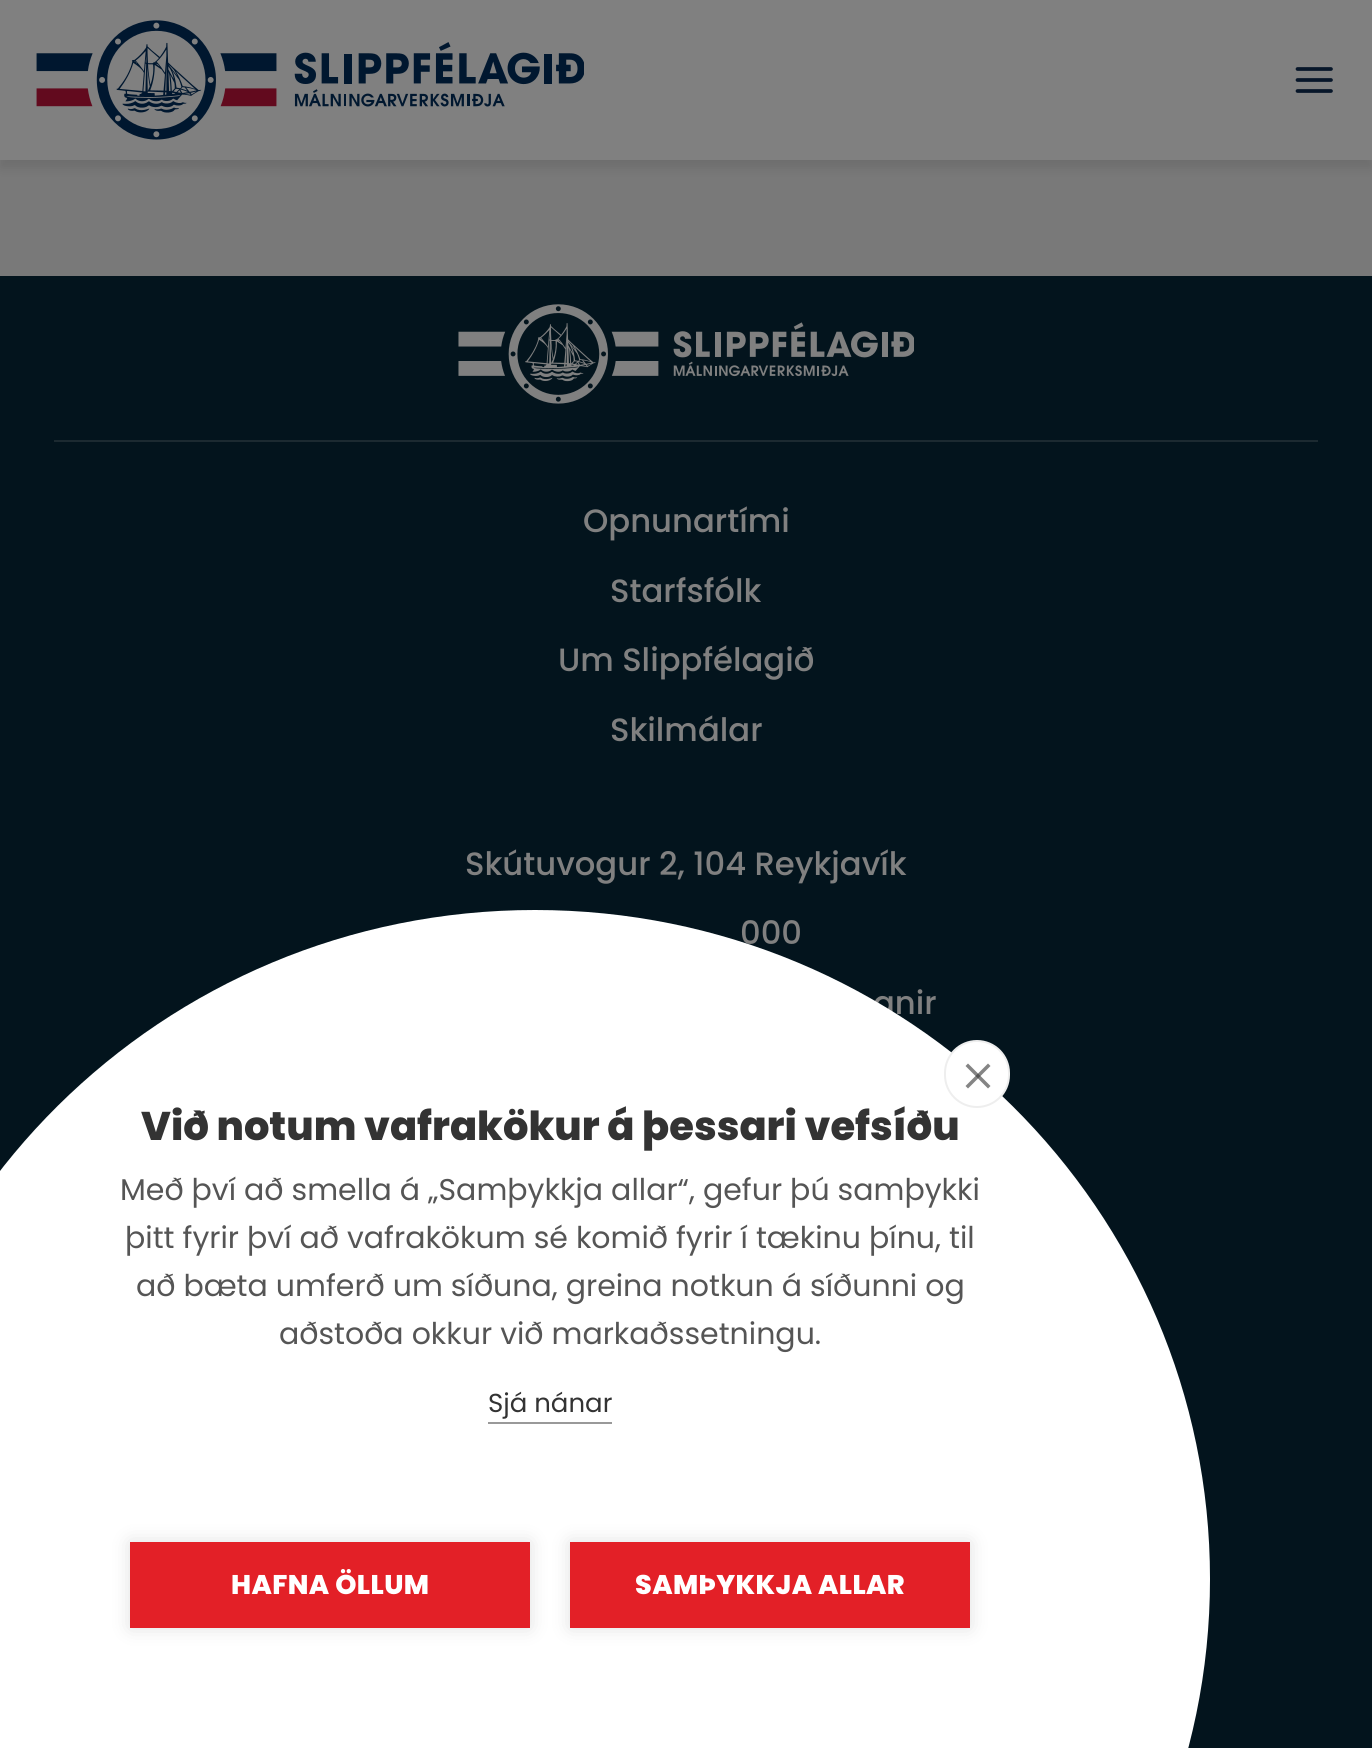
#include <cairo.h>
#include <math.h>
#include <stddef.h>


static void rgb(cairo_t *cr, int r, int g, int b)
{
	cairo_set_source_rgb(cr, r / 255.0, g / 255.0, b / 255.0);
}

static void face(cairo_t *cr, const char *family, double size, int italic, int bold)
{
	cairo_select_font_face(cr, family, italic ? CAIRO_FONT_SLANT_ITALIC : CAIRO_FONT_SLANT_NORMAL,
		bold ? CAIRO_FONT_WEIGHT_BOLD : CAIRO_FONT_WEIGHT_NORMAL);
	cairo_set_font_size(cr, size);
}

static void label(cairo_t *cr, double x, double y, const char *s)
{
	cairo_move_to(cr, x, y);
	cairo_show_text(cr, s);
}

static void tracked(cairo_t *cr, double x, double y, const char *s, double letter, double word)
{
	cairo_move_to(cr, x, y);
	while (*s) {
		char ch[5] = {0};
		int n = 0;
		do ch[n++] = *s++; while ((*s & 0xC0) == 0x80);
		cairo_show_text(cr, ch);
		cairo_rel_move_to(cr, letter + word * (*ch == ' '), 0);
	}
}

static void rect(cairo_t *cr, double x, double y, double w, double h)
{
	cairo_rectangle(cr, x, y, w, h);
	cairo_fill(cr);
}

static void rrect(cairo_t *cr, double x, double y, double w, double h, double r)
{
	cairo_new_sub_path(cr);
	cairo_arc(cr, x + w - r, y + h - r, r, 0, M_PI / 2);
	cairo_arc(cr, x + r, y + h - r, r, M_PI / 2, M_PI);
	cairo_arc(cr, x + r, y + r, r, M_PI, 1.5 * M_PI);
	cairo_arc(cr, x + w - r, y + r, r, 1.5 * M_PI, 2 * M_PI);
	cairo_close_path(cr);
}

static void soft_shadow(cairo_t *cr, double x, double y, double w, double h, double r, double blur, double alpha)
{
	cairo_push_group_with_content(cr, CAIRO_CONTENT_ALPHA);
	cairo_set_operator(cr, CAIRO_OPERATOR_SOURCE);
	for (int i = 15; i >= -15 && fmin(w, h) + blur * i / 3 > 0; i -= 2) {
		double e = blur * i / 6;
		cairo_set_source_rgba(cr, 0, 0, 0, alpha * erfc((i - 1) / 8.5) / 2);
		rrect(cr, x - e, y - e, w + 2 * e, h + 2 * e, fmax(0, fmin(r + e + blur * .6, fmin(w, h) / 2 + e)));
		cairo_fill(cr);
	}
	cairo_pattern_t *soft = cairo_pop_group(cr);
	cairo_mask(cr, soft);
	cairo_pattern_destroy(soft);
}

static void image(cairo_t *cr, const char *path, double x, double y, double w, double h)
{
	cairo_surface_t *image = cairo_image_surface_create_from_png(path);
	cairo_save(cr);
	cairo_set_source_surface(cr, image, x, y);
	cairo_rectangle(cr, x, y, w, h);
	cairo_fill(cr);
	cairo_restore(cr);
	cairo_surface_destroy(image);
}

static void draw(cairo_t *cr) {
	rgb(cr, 121, 121, 121);
	cairo_paint(cr);
	rgb(cr, 0, 0, 0);
	soft_shadow(cr, 0, 8, 1372, 160, 0, 6, 0.1);
	rgb(cr, 128, 128, 128);
	rect(cr, 0, 0, 1372, 160);
	image(cr, "image0.png", 36, 20, 548, 120);
	cairo_new_path(cr);
	cairo_move_to(cr, 1297.5, 80);
	cairo_line_to(cr, 1331, 80);
	cairo_move_to(cr, 1297.5, 69);
	cairo_line_to(cr, 1331, 69);
	cairo_move_to(cr, 1297.5, 91);
	cairo_line_to(cr, 1331, 91);
	rgb(cr, 7, 22, 41);
	cairo_set_line_width(cr, 3.7);
	cairo_set_line_cap(cr, CAIRO_LINE_CAP_ROUND);
	cairo_set_line_join(cr, CAIRO_LINE_JOIN_ROUND);
	cairo_stroke(cr);
	rgb(cr, 3, 20, 29);
	rect(cr, 0, 276, 1372, 1472);
	image(cr, "image1.png", 458, 304, 456, 100);
	rgb(cr, 28, 42, 49);
	rect(cr, 54, 440, 1264, 2);
	face(cr, "Poppins Medium", 32.25, 0, 0);
	rgb(cr, 128, 128, 128);
	label(cr, 583, 532, "Opnunartími");
	label(cr, 610, 602, "Starfsfólk");
	label(cr, 558, 671, "Um Slippfélagið");
	label(cr, 610, 741, "Skilmálar");
	label(cr, 465, 875, "Skútuvogur 2, 104 Reykjavík");
	label(cr, 740, 944, "000");
	label(cr, 873, 1014, "anir");
	rgb(cr, 255, 255, 255);
	cairo_new_path(cr);
	cairo_move_to(cr, 535, 910);
	cairo_curve_to(cr, 908, 910, 1210, 1209.5, 1210, 1579);
	cairo_curve_to(cr, 1210, 1948.5, 908, 2248, 535, 2248);
	cairo_curve_to(cr, 162, 2248, -140, 1948.5, -140, 1579);
	cairo_curve_to(cr, -140, 1209.5, 162, 910, 535, 910);
	cairo_close_path(cr);
	cairo_fill(cr);
	rrect(cr, 945, 1041, 64, 66, 32);
	cairo_fill_preserve(cr);
	rgb(cr, 238, 238, 238);
	cairo_set_line_width(cr, 2);
	cairo_set_line_cap(cr, CAIRO_LINE_CAP_BUTT);
	cairo_set_line_join(cr, CAIRO_LINE_JOIN_MITER);
	cairo_stroke(cr);
	rgb(cr, 133, 133, 133);
	cairo_new_path(cr);
	cairo_move_to(cr, 965.5, 1086);
	cairo_line_to(cr, 988, 1063.5);
	cairo_line_to(cr, 990.5, 1066);
	cairo_line_to(cr, 968, 1088.5);
	cairo_close_path(cr);
	cairo_fill(cr);
	cairo_set_source_rgba(cr, 0.2, 0.2, 0.2, 0.6);
	cairo_new_path(cr);
	cairo_move_to(cr, 968, 1063.5);
	cairo_line_to(cr, 990.5, 1086);
	cairo_line_to(cr, 988, 1088.5);
	cairo_line_to(cr, 965.5, 1066);
	cairo_close_path(cr);
	cairo_fill(cr);
	face(cr, "Poppins ExtraBold", 40, 0, 0);
	rgb(cr, 51, 51, 51);
	label(cr, 141, 1140, "Við notum vafrakökur á þessari vefsíðu");
	face(cr, "Poppins", 30, 0, 0);
	rgb(cr, 85, 85, 85);
	label(cr, 120, 1200, "Með því að smella á „Samþykkja allar“, gefur þú samþykki");
	label(cr, 125, 1248, "þitt fyrir því að vafrakökum sé komið fyrir í tækinu þínu, til");
	label(cr, 136, 1296, "að bæta umferð um síðuna, greina notkun á síðunni og");
	label(cr, 279, 1344, "aðstoða okkur við markaðssetningu.");
	face(cr, "Poppins", 26, 0, 0);
	rgb(cr, 51, 51, 51);
	label(cr, 488, 1412, "Sjá nánar");
	rgb(cr, 153, 153, 153);
	rect(cr, 488, 1422, 124, 2);
	rgb(cr, 0, 0, 0);
	soft_shadow(cr, 130, 1542, 400, 86, 0, 10, 0.12);
	rgb(cr, 227, 32, 39);
	rect(cr, 130, 1542, 400, 86);
	face(cr, "Poppins ExtraBold", 27, 0, 0);
	rgb(cr, 255, 255, 255);
	tracked(cr, 231, 1594, "HAFNA ÖLLUM", 0.4, 0);
	rgb(cr, 0, 0, 0);
	soft_shadow(cr, 570, 1542, 400, 86, 0, 10, 0.12);
	rgb(cr, 227, 32, 39);
	rect(cr, 570, 1542, 400, 86);
	rgb(cr, 255, 255, 255);
	tracked(cr, 635, 1594, "SAMÞYKKJA ALLAR", 0.4, 0);
}

int main(void) {
	cairo_surface_t *surface = cairo_image_surface_create(CAIRO_FORMAT_RGB24, 1372, 1748);
	cairo_t *cr = cairo_create(surface);
	cairo_font_options_t *options = cairo_font_options_create();
	cairo_font_options_set_hint_metrics(options, CAIRO_HINT_METRICS_OFF);
	cairo_font_options_set_hint_style(options, CAIRO_HINT_STYLE_NONE);
	cairo_set_font_options(cr, options);
	cairo_set_miter_limit(cr, 4);
	draw(cr);
	cairo_surface_write_to_png(surface, "render.png");
	cairo_font_options_destroy(options);
	cairo_destroy(cr);
	cairo_surface_destroy(surface);
	return 0;
}
